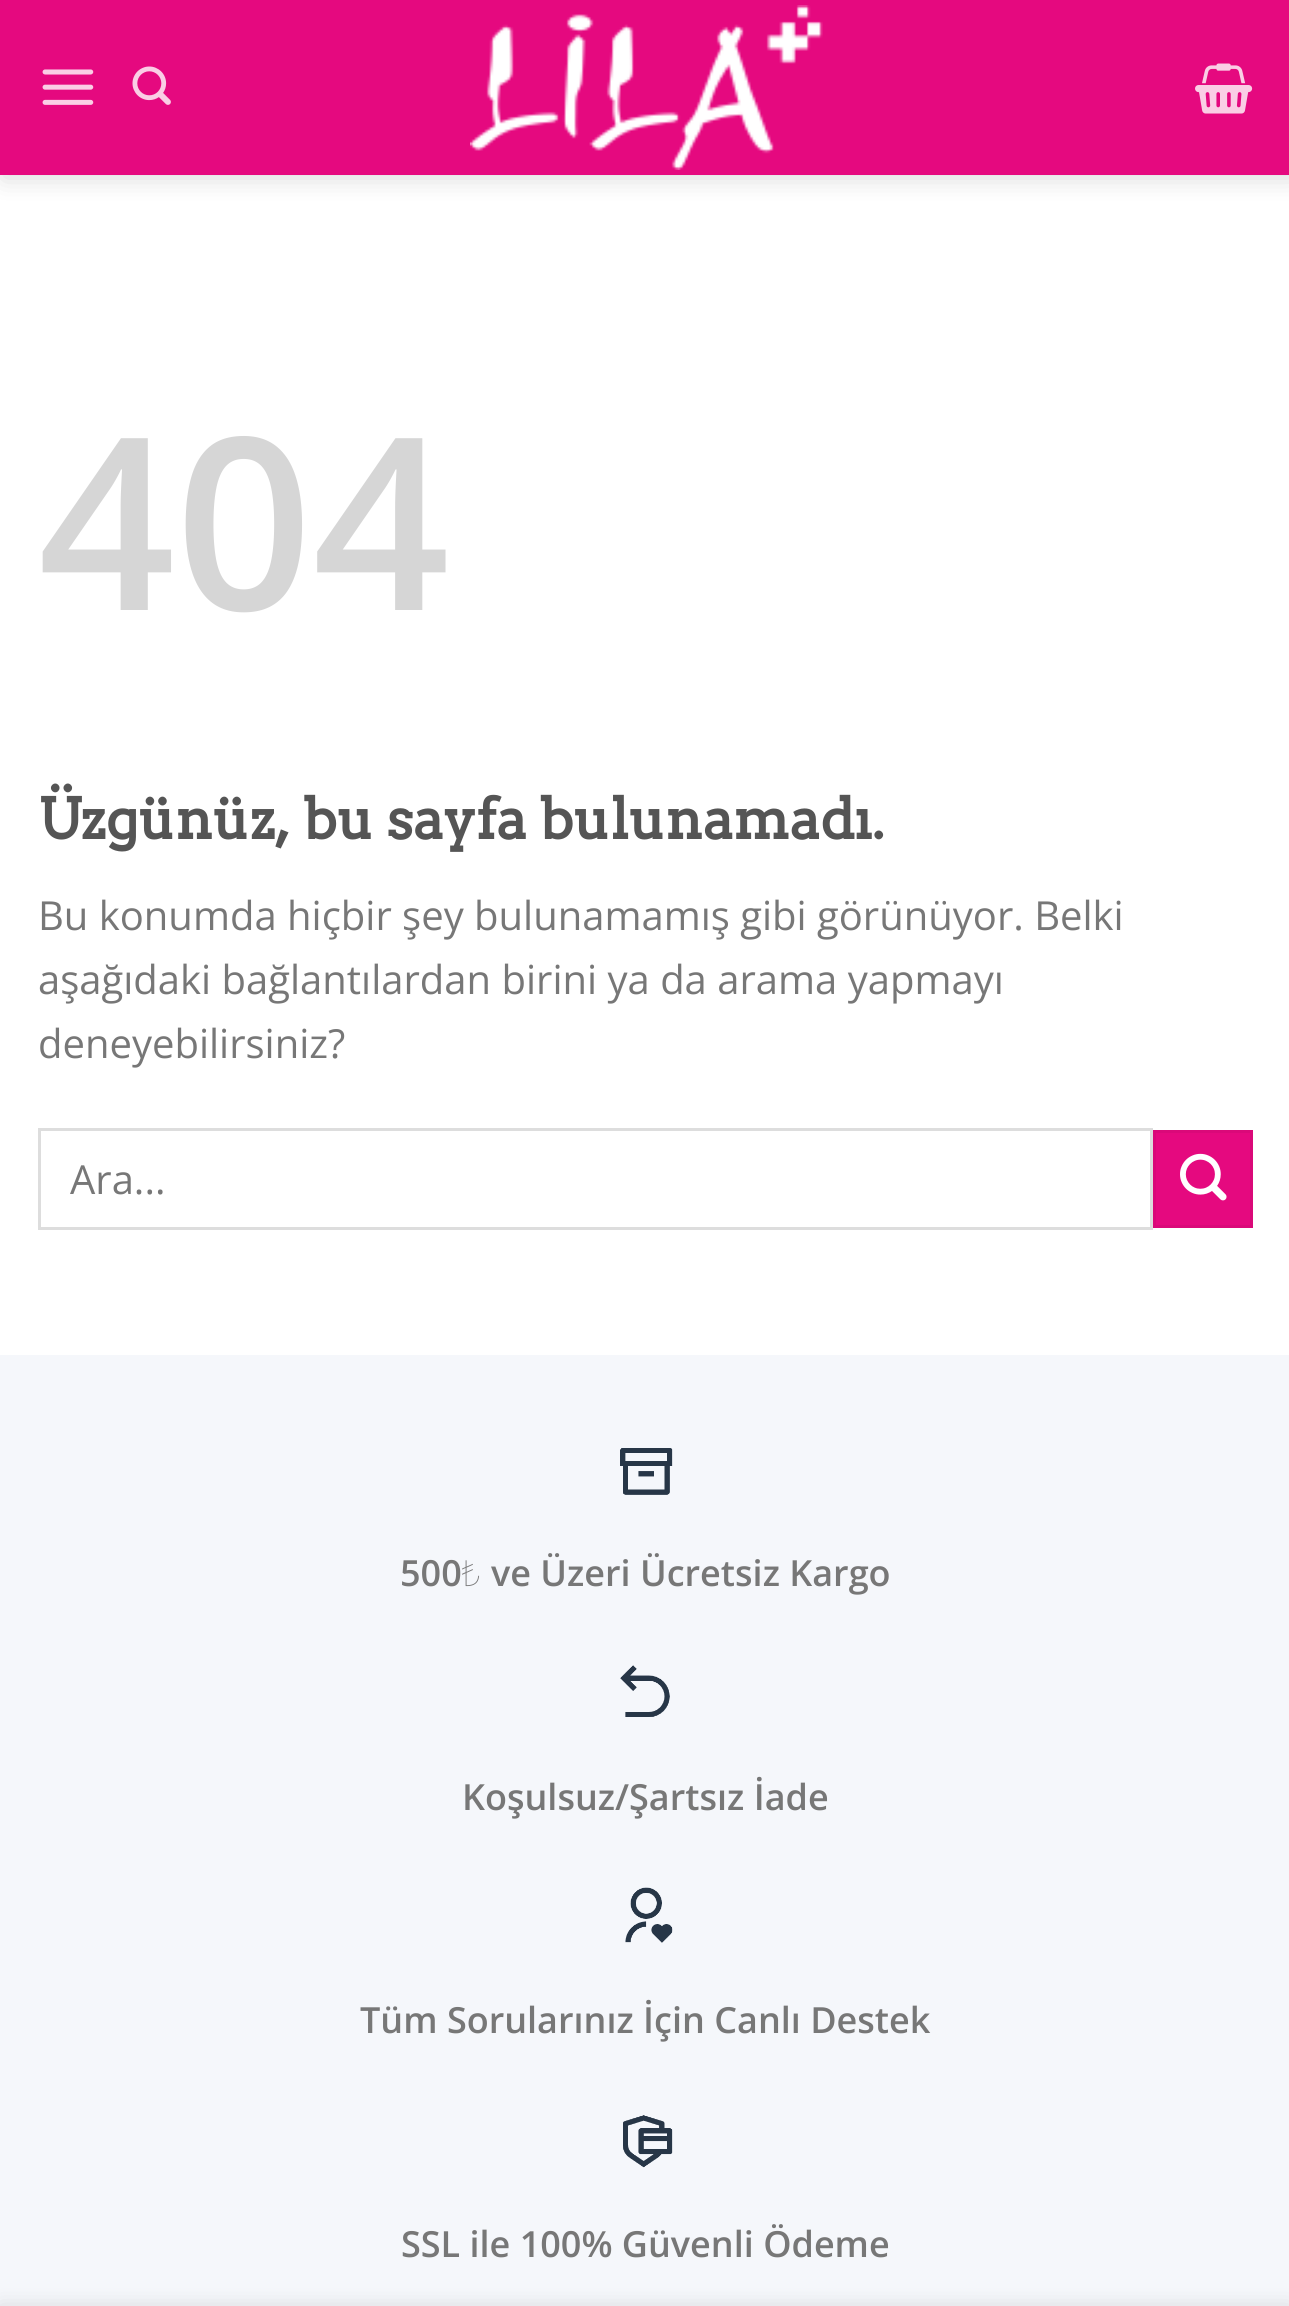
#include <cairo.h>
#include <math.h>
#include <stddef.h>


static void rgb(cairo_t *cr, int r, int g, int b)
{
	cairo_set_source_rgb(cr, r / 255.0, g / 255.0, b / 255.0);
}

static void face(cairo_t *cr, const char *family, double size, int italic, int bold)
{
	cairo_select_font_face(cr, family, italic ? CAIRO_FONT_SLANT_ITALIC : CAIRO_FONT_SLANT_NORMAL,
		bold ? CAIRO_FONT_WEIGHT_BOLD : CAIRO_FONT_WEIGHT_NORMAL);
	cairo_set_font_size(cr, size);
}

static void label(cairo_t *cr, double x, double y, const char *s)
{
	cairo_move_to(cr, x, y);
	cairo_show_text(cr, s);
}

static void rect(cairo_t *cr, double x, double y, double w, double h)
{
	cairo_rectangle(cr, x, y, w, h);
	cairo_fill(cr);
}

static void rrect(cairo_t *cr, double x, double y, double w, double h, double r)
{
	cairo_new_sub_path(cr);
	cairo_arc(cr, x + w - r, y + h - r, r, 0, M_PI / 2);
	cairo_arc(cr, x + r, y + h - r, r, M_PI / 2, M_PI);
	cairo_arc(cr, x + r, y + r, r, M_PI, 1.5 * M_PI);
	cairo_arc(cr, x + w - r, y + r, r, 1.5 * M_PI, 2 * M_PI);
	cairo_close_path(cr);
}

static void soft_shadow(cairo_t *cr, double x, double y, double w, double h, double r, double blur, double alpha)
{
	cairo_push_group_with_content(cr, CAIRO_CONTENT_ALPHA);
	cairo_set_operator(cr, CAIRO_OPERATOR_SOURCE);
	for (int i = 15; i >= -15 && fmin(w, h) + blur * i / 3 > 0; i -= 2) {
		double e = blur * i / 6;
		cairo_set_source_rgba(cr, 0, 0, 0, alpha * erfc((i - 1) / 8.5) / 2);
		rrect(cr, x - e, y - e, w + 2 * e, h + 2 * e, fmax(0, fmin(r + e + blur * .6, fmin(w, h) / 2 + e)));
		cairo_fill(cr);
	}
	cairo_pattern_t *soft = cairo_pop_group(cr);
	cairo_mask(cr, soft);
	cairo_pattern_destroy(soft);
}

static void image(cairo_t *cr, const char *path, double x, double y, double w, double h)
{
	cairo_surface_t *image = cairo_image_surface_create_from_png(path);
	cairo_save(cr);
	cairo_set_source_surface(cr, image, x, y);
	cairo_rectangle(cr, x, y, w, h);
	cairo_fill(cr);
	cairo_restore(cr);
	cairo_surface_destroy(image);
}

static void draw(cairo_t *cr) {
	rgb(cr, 255, 255, 255);
	cairo_paint(cr);
	rgb(cr, 0, 0, 0);
	soft_shadow(cr, 3, 3, 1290, 175, 0, 12.5, 0.15);
	rgb(cr, 229, 9, 127);
	rect(cr, 0, 0, 1289, 175);
	image(cr, "image0.png", 42, 69, 52, 36);
	image(cr, "image1.png", 132, 66, 39, 39);
	image(cr, "image2.png", 470, 5, 353, 165);
	image(cr, "image3.png", 1195, 63, 58, 51);
	face(cr, "Open Sans SemiBold", 240, 0, 0);
	rgb(cr, 214, 214, 214);
	label(cr, 38, 610, "404");
	face(cr, "Arvo", 56, 0, 1);
	rgb(cr, 85, 85, 85);
	label(cr, 38, 839, "Üzgünüz, bu sayfa bulunamadı.");
	face(cr, "Open Sans", 40, 0, 0);
	rgb(cr, 119, 119, 119);
	label(cr, 38, 930, "Bu konumda hiçbir şey bulunamamış gibi görünüyor. Belki");
	label(cr, 38, 994, "aşağıdaki bağlantılardan birini ya da arama yapmayı");
	label(cr, 38, 1058, "deneyebilirsiniz?");
	cairo_rectangle(cr, 39.5, 1129.5, 1112, 99);
	rgb(cr, 221, 221, 221);
	cairo_set_line_width(cr, 3);
	cairo_stroke(cr);
	rgb(cr, 119, 119, 119);
	label(cr, 70, 1194, "Ara...");
	rgb(cr, 229, 9, 127);
	cairo_rectangle(cr, 1154.5, 1131.5, 97, 95);
	cairo_fill_preserve(cr);
	rgb(cr, 218, 9, 121);
	cairo_stroke(cr);
	image(cr, "image4.png", 1180, 1153, 47, 48);
	rgb(cr, 245, 247, 251);
	rect(cr, 0, 1355, 1289, 951);
	image(cr, "image5.png", 620, 1448, 53, 47);
	face(cr, "Open Sans SemiBold", 36, 0, 0);
	rgb(cr, 119, 119, 119);
	label(cr, 400, 1586, "500");
	face(cr, "Noto Sans Thin", 36, 0, 0);
	label(cr, 461, 1586, "₺");
	face(cr, "Open Sans SemiBold", 36, 0, 0);
	label(cr, 491, 1586, "ve Üzeri Ücretsiz Kargo");
	image(cr, "image6.png", 620, 1665, 50, 52);
	label(cr, 462, 1810, "Koşulsuz/Şartsız İade");
	image(cr, "image7.png", 625, 1887, 48, 56);
	label(cr, 360, 2033, "Tüm Sorularınız İçin Canlı Destek");
	image(cr, "image8.png", 623, 2115, 50, 53);
	label(cr, 401, 2257, "SSL ile 100% Güvenli Ödeme");
	rgb(cr, 0, 0, 0);
	soft_shadow(cr, 0, 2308, 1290, 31, 0, 11, 0.14);
}

int main(void) {
	cairo_surface_t *surface = cairo_image_surface_create(CAIRO_FORMAT_RGB24, 1289, 2306);
	cairo_t *cr = cairo_create(surface);
	cairo_font_options_t *options = cairo_font_options_create();
	cairo_font_options_set_hint_metrics(options, CAIRO_HINT_METRICS_OFF);
	cairo_font_options_set_hint_style(options, CAIRO_HINT_STYLE_NONE);
	cairo_set_font_options(cr, options);
	cairo_set_miter_limit(cr, 4);
	draw(cr);
	cairo_surface_write_to_png(surface, "render.png");
	cairo_font_options_destroy(options);
	cairo_destroy(cr);
	cairo_surface_destroy(surface);
	return 0;
}
